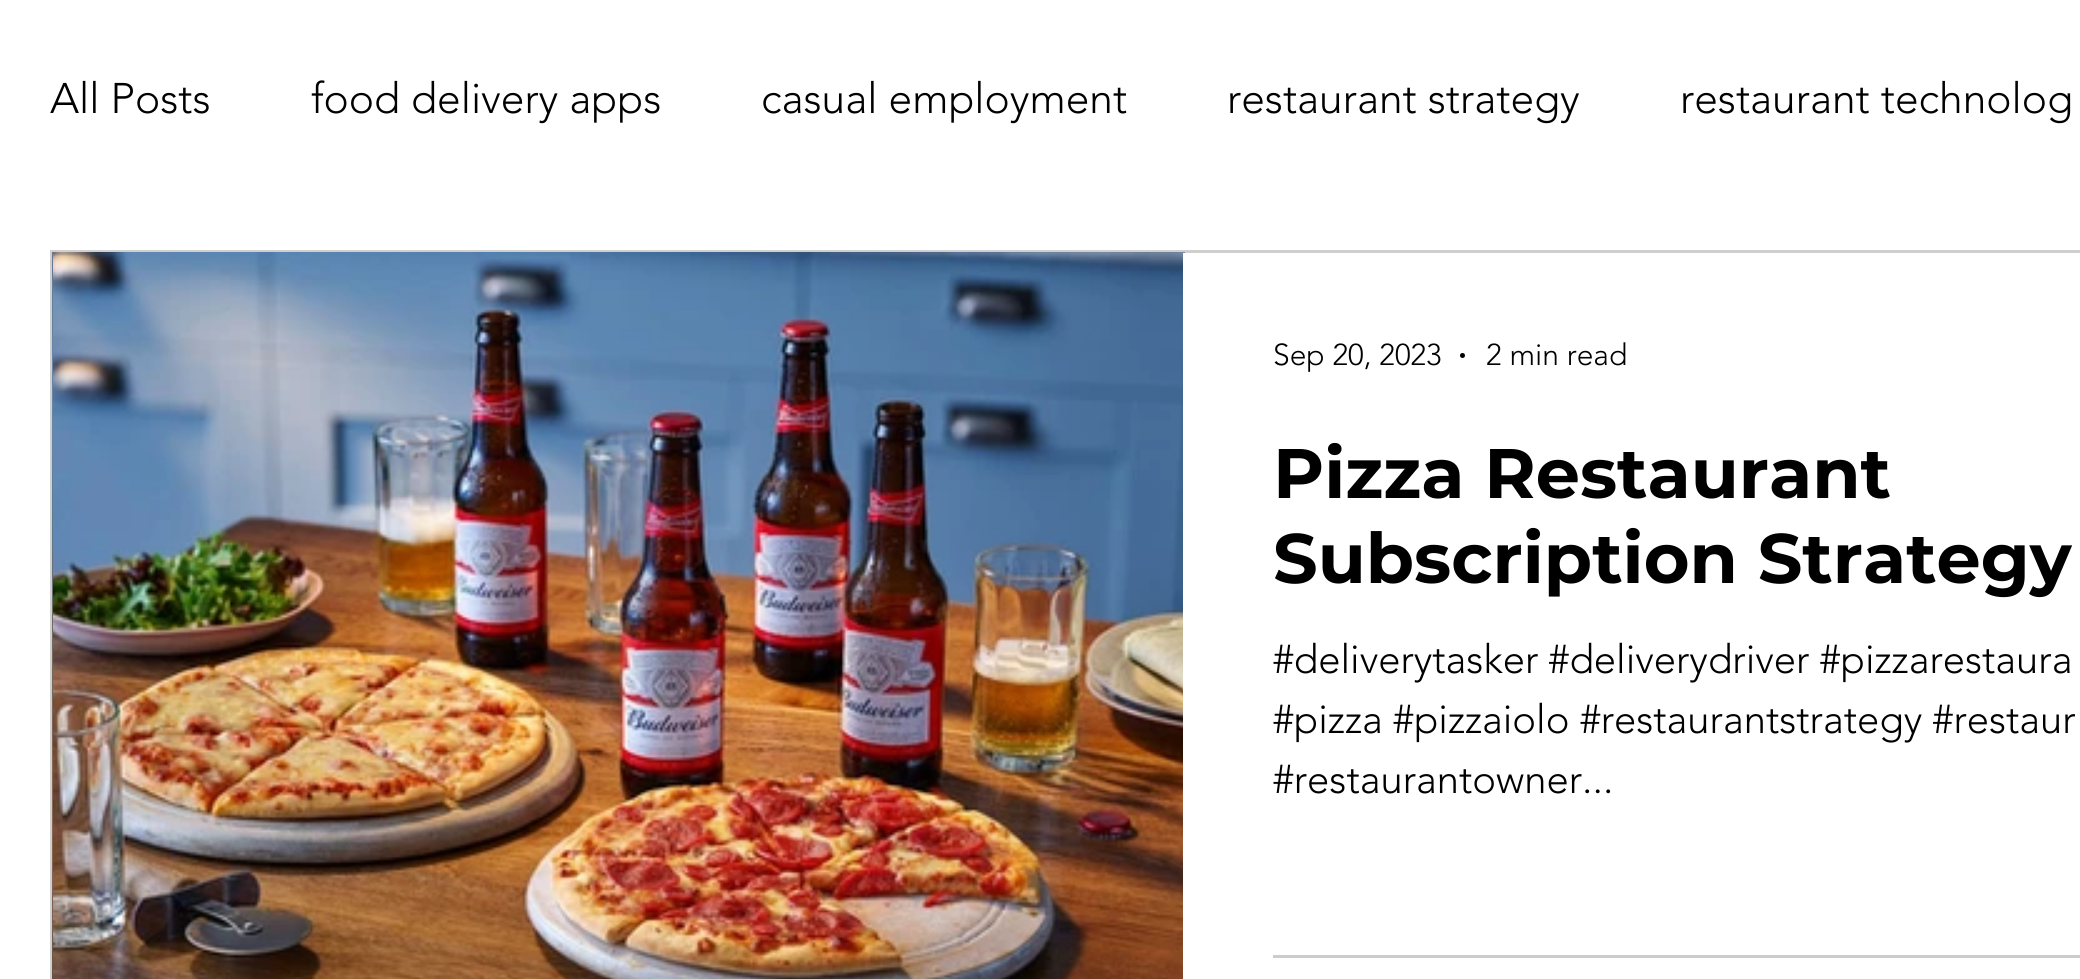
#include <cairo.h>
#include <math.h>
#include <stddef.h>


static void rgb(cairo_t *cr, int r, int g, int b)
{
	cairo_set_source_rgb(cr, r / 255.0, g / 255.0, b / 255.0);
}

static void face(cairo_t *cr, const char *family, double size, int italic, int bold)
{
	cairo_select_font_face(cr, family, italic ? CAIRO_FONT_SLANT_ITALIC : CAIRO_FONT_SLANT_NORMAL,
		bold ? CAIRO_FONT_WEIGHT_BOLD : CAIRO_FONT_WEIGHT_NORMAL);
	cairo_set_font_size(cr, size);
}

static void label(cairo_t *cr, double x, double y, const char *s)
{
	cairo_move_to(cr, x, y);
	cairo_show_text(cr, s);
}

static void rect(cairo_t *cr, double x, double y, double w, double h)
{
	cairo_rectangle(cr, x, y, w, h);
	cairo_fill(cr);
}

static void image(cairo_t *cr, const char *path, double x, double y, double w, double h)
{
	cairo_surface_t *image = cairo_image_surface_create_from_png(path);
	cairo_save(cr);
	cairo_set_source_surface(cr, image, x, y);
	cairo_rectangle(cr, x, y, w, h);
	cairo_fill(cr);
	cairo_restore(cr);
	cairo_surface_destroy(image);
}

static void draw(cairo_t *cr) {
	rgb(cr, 255, 255, 255);
	cairo_paint(cr);
	face(cr, "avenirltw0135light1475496 Light", 42.5, 0, 0);
	rgb(cr, 0, 0, 0);
	label(cr, 50, 113, "All Posts");
	label(cr, 311, 113, "food delivery apps");
	label(cr, 761, 113, "casual employment");
	label(cr, 1227, 113, "restaurant strategy");
	label(cr, 1680, 113, "restaurant technolog");
	cairo_rectangle(cr, 51.5, 251.5, 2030, 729);
	rgb(cr, 207, 207, 207);
	cairo_set_line_width(cr, 3);
	cairo_stroke(cr);
	image(cr, "image0.png", 52, 252, 1, 727);
	image(cr, "image1.png", 53, 252, 1132, 727);
	rgb(cr, 255, 255, 255);
	rect(cr, 1183, 253, 2, 726);
	face(cr, "avenirltw0135light1475496 Light", 30, 0, 0);
	rgb(cr, 0, 0, 0);
	label(cr, 1273, 365, "Sep 20, 2023");
	cairo_new_path(cr);
	cairo_arc(cr, 1462.5, 355.5, 2.5, 0, 2 * M_PI);
	cairo_fill(cr);
	label(cr, 1486, 365, "2 min read");
	face(cr, "Montserrat", 70, 0, 1);
	label(cr, 1273, 498, "Pizza Restaurant");
	label(cr, 1273, 583, "Subscription Strategy");
	face(cr, "avenirltw0135light1475496 Light", 40, 0, 0);
	label(cr, 1273, 673, "#deliverytasker #deliverydriver #pizzarestaura");
	label(cr, 1273, 733, "#pizza #pizzaiolo #restaurantstrategy #restaur");
	label(cr, 1273, 793, "#restaurantowner...");
	rgb(cr, 204, 204, 204);
	rect(cr, 1273, 955, 807, 3);
}

int main(void) {
	cairo_surface_t *surface = cairo_image_surface_create(CAIRO_FORMAT_RGB24, 2080, 979);
	cairo_t *cr = cairo_create(surface);
	cairo_font_options_t *options = cairo_font_options_create();
	cairo_font_options_set_hint_metrics(options, CAIRO_HINT_METRICS_OFF);
	cairo_font_options_set_hint_style(options, CAIRO_HINT_STYLE_NONE);
	cairo_set_font_options(cr, options);
	cairo_set_miter_limit(cr, 4);
	draw(cr);
	cairo_surface_write_to_png(surface, "render.png");
	cairo_font_options_destroy(options);
	cairo_destroy(cr);
	cairo_surface_destroy(surface);
	return 0;
}
